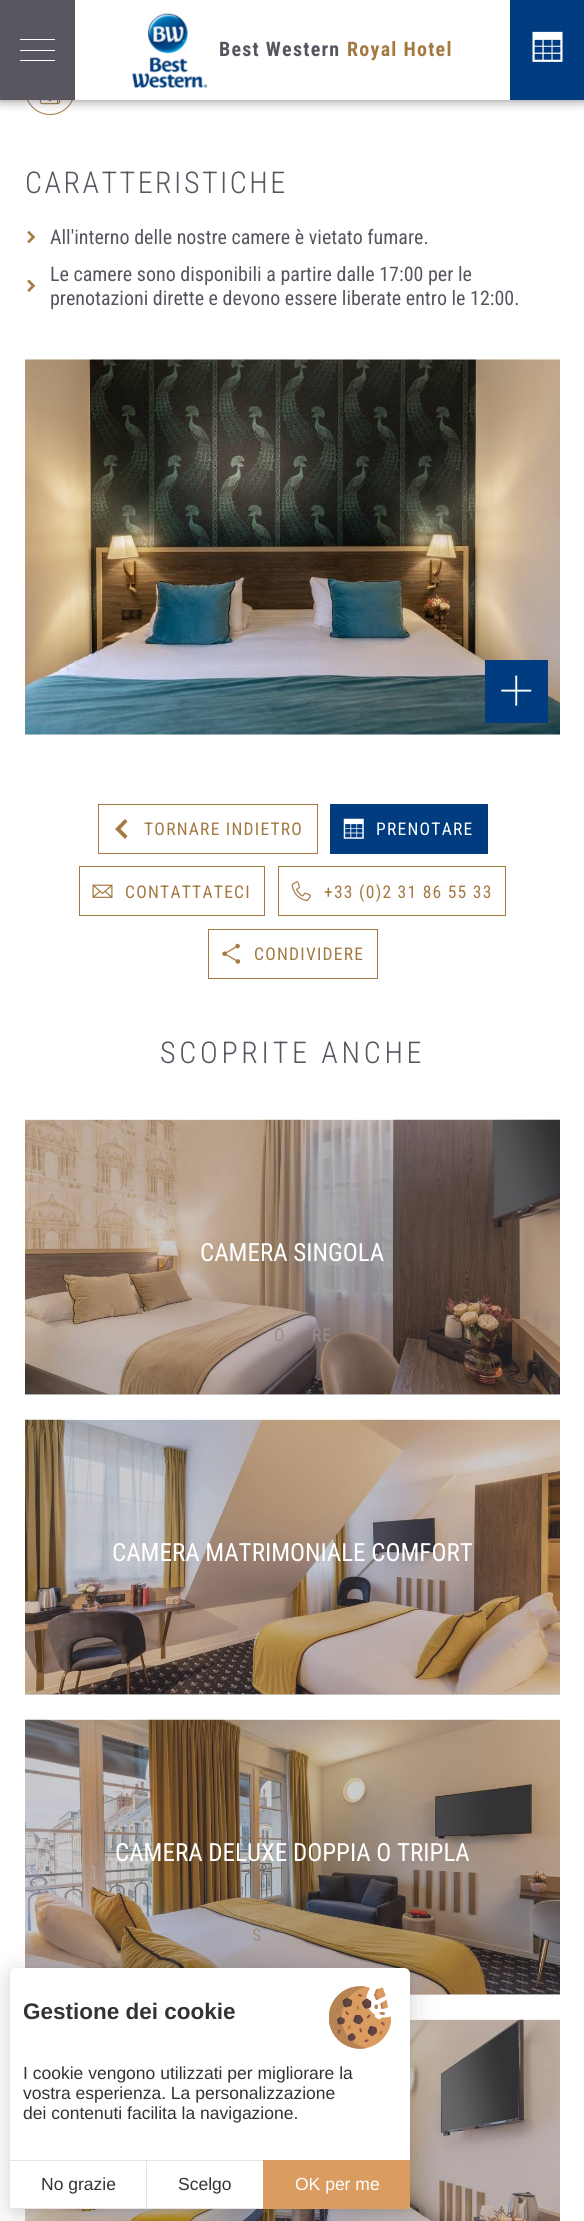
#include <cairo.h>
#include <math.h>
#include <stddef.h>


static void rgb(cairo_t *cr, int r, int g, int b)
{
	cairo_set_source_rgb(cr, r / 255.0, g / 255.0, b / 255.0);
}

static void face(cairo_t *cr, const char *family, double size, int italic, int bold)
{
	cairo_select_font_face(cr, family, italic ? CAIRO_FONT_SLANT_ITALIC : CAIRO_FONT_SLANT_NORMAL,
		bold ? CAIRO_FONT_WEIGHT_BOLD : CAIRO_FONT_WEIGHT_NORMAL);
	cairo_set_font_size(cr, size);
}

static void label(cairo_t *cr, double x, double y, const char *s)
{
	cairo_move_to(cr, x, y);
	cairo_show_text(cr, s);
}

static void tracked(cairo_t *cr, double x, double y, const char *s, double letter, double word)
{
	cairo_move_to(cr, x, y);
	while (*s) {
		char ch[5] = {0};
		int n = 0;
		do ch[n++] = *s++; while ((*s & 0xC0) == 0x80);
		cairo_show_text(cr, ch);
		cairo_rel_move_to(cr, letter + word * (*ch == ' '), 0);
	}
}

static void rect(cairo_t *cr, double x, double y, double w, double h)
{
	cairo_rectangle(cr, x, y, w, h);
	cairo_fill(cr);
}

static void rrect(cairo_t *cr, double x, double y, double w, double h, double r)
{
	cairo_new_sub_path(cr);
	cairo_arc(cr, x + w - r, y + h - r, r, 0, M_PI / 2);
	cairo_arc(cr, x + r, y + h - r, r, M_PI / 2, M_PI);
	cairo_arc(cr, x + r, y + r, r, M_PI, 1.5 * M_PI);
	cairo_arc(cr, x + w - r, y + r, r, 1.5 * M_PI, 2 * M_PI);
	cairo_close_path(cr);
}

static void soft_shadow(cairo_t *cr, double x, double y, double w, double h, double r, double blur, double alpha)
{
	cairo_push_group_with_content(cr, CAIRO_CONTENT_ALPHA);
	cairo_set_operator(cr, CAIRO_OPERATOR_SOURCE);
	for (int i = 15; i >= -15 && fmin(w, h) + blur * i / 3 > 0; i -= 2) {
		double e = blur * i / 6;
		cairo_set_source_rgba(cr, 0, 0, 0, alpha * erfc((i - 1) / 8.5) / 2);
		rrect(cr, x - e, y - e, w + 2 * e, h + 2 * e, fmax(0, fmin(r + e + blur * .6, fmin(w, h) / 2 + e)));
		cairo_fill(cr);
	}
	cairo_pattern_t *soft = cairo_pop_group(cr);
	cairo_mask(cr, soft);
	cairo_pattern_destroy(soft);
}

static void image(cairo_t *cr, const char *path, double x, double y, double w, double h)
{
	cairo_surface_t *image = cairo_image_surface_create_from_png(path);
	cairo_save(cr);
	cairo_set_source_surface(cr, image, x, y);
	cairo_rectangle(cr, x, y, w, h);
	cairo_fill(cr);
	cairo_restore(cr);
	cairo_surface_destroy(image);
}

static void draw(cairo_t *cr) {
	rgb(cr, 255, 255, 255);
	cairo_paint(cr);
	rgb(cr, 205, 204, 207);
	rect(cr, 410, 1994, 150, 1);
	rect(cr, 25, 1694, 535, 1);
	rect(cr, 25, 1394, 535, 1);
	cairo_arc(cr, 50, 90, 24.5, 0, 2 * M_PI);
	rgb(cr, 164, 121, 66);
	cairo_set_line_width(cr, 1);
	cairo_stroke(cr);
	image(cr, "image2.png", 39, 100, 22, 5);
	rgb(cr, 0, 0, 0);
	soft_shadow(cr, 0, 0, 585, 100, 0, 6, 0.5);
	rgb(cr, 255, 255, 255);
	rect(cr, 75, 0, 435, 100);
	rgb(cr, 89, 86, 96);
	rect(cr, 0, 0, 75, 100);
	rgb(cr, 255, 255, 255);
	rect(cr, 20, 39, 35, 1);
	rect(cr, 20, 50, 35, 1);
	rect(cr, 20, 60, 35, 1);
	image(cr, "image0.png", 132, 13, 76, 75);
	face(cr, "Roboto Condensed", 20, 0, 1);
	rgb(cr, 89, 85, 96);
	tracked(cr, 219, 56, "Best Western", 1.25, 0);
	rgb(cr, 164, 121, 66);
	tracked(cr, 347, 56, "Royal Hotel", 1.25, 0);
	rgb(cr, 0, 60, 127);
	rect(cr, 510, 0, 74, 100);
	image(cr, "image1.png", 532, 31, 31, 31);
	face(cr, "Roboto Condensed Light", 30, 0, 0);
	rgb(cr, 89, 85, 96);
	tracked(cr, 25, 193, "CARATTERISTICHE", 2.5, 0);
	image(cr, "image3.png", 27, 230, 9, 14);
	face(cr, "Roboto Condensed", 20, 0, 0);
	label(cr, 50, 244, "All'interno delle nostre camere è vietato fumare.");
	image(cr, "image4.png", 27, 279, 9, 13);
	label(cr, 50, 281, "Le camere sono disponibili a partire dalle 17:00 per le");
	label(cr, 50, 305, "prenotazioni dirette e devono essere liberate entro le 12:00.");
	image(cr, "image5.png", 25, 359, 535, 376);
	rgb(cr, 0, 60, 127);
	rect(cr, 485, 660, 63, 63);
	image(cr, "image6.png", 501, 675, 31, 31);
	cairo_rectangle(cr, 98.5, 804.5, 219, 49);
	rgb(cr, 164, 121, 66);
	cairo_stroke(cr);
	cairo_new_path(cr);
	cairo_move_to(cr, 125, 839);
	cairo_line_to(cr, 127.5, 836);
	cairo_line_to(cr, 120.5, 829);
	cairo_line_to(cr, 127.5, 821.5);
	cairo_line_to(cr, 125, 819);
	cairo_line_to(cr, 115, 829);
	cairo_close_path(cr);
	cairo_fill(cr);
	face(cr, "Roboto Condensed", 17.5, 0, 0);
	tracked(cr, 144, 835, "TORNARE INDIETRO", 1.25, 0);
	rgb(cr, 0, 60, 127);
	rect(cr, 330, 804, 158, 50);
	image(cr, "image7.png", 343, 818, 21, 21);
	rgb(cr, 255, 255, 255);
	tracked(cr, 376, 835, "PRENOTARE", 1.25, 0);
	cairo_rectangle(cr, 79.5, 866.5, 185, 49);
	rgb(cr, 164, 121, 66);
	cairo_stroke(cr);
	image(cr, "image8.png", 92, 884, 21, 14);
	tracked(cr, 125, 898, "CONTATTATECI", 1.25, 0);
	cairo_rectangle(cr, 278.5, 866.5, 227, 49);
	cairo_stroke(cr);
	image(cr, "image9.png", 291, 881, 20, 21);
	tracked(cr, 324, 898, "+33 (0)2 31 86 55 33", 1.25, 0);
	cairo_rectangle(cr, 208.5, 929.5, 169, 49);
	cairo_stroke(cr);
	image(cr, "image10.png", 222, 943, 19, 21);
	tracked(cr, 254, 960, "CONDIVIDERE", 1.25, 0);
	face(cr, "Roboto Condensed Light", 30, 0, 0);
	rgb(cr, 89, 85, 96);
	tracked(cr, 160, 1063, "SCOPRITE ANCHE", 3.75, 0);
	image(cr, "image11.png", 25, 1119, 535, 276);
	face(cr, "Roboto Condensed", 25, 0, 0);
	rgb(cr, 255, 255, 255);
	label(cr, 200, 1261, "CAMERA SINGOLA");
	face(cr, "Roboto Condensed", 17.5, 0, 0);
	rgb(cr, 156, 141, 139);
	tracked(cr, 274, 1341, "O", 1.25, 0);
	tracked(cr, 312, 1341, "RE", 1.25, 0);
	image(cr, "image12.png", 25, 1419, 535, 276);
	face(cr, "Roboto Condensed", 25, 0, 0);
	rgb(cr, 255, 255, 255);
	label(cr, 112, 1561, "CAMERA MATRIMONIALE COMFORT");
	image(cr, "image13.png", 25, 1719, 535, 276);
	label(cr, 115, 1861, "CAMERA DELUXE DOPPIA O TRIPLA");
	face(cr, "Roboto Condensed", 17.5, 0, 0);
	rgb(cr, 158, 140, 117);
	tracked(cr, 252, 1941, "S", 1.25, 0);
	image(cr, "image14.png", 25, 2019, 535, 202);
	rgb(cr, 0, 0, 0);
	soft_shadow(cr, 10, 1970, 400, 241, 6, 4, 0.05);
	soft_shadow(cr, 10, 1973, 400, 241, 6, 15, 0.15);
	rgb(cr, 255, 255, 255);
	cairo_new_path(cr);
	cairo_move_to(cr, 16, 1968);
	cairo_line_to(cr, 404, 1968);
	cairo_curve_to(cr, 407.5, 1968, 410, 1970.5, 410, 1974);
	cairo_line_to(cr, 410, 2209);
	cairo_line_to(cr, 10, 2209);
	cairo_line_to(cr, 10, 1974);
	cairo_curve_to(cr, 10, 1970.5, 12.5, 1968, 16, 1968);
	cairo_close_path(cr);
	cairo_fill(cr);
	image(cr, "image15.png", 329, 1986, 62, 63);
	face(cr, "Liberation Sans", 22.5, 0, 1);
	rgb(cr, 51, 51, 51);
	label(cr, 23, 2019, "Gestione dei cookie");
	face(cr, "Liberation Sans", 17.5, 0, 0);
	label(cr, 23, 2079, "I cookie vengono utilizzati per migliorare la");
	label(cr, 23, 2099, "vostra esperienza. La personalizzazione");
	label(cr, 23, 2119, "dei contenuti facilita la navigazione.");
	rgb(cr, 232, 227, 227);
	rect(cr, 10, 2160, 253, 1);
	rect(cr, 10, 2208, 253, 1);
	rgb(cr, 51, 51, 51);
	label(cr, 41, 2190, "No grazie");
	rgb(cr, 232, 227, 227);
	rect(cr, 146, 2160, 1, 49);
	rgb(cr, 51, 51, 51);
	label(cr, 178, 2190, "Scelgo");
	rgb(cr, 218, 156, 97);
	rect(cr, 263, 2160, 147, 49);
	rgb(cr, 255, 255, 255);
	label(cr, 295, 2190, "OK per me");
}

int main(void) {
	cairo_surface_t *surface = cairo_image_surface_create(CAIRO_FORMAT_RGB24, 584, 2221);
	cairo_t *cr = cairo_create(surface);
	cairo_font_options_t *options = cairo_font_options_create();
	cairo_font_options_set_hint_metrics(options, CAIRO_HINT_METRICS_OFF);
	cairo_font_options_set_hint_style(options, CAIRO_HINT_STYLE_NONE);
	cairo_set_font_options(cr, options);
	cairo_set_miter_limit(cr, 4);
	draw(cr);
	cairo_surface_write_to_png(surface, "render.png");
	cairo_font_options_destroy(options);
	cairo_destroy(cr);
	cairo_surface_destroy(surface);
	return 0;
}
